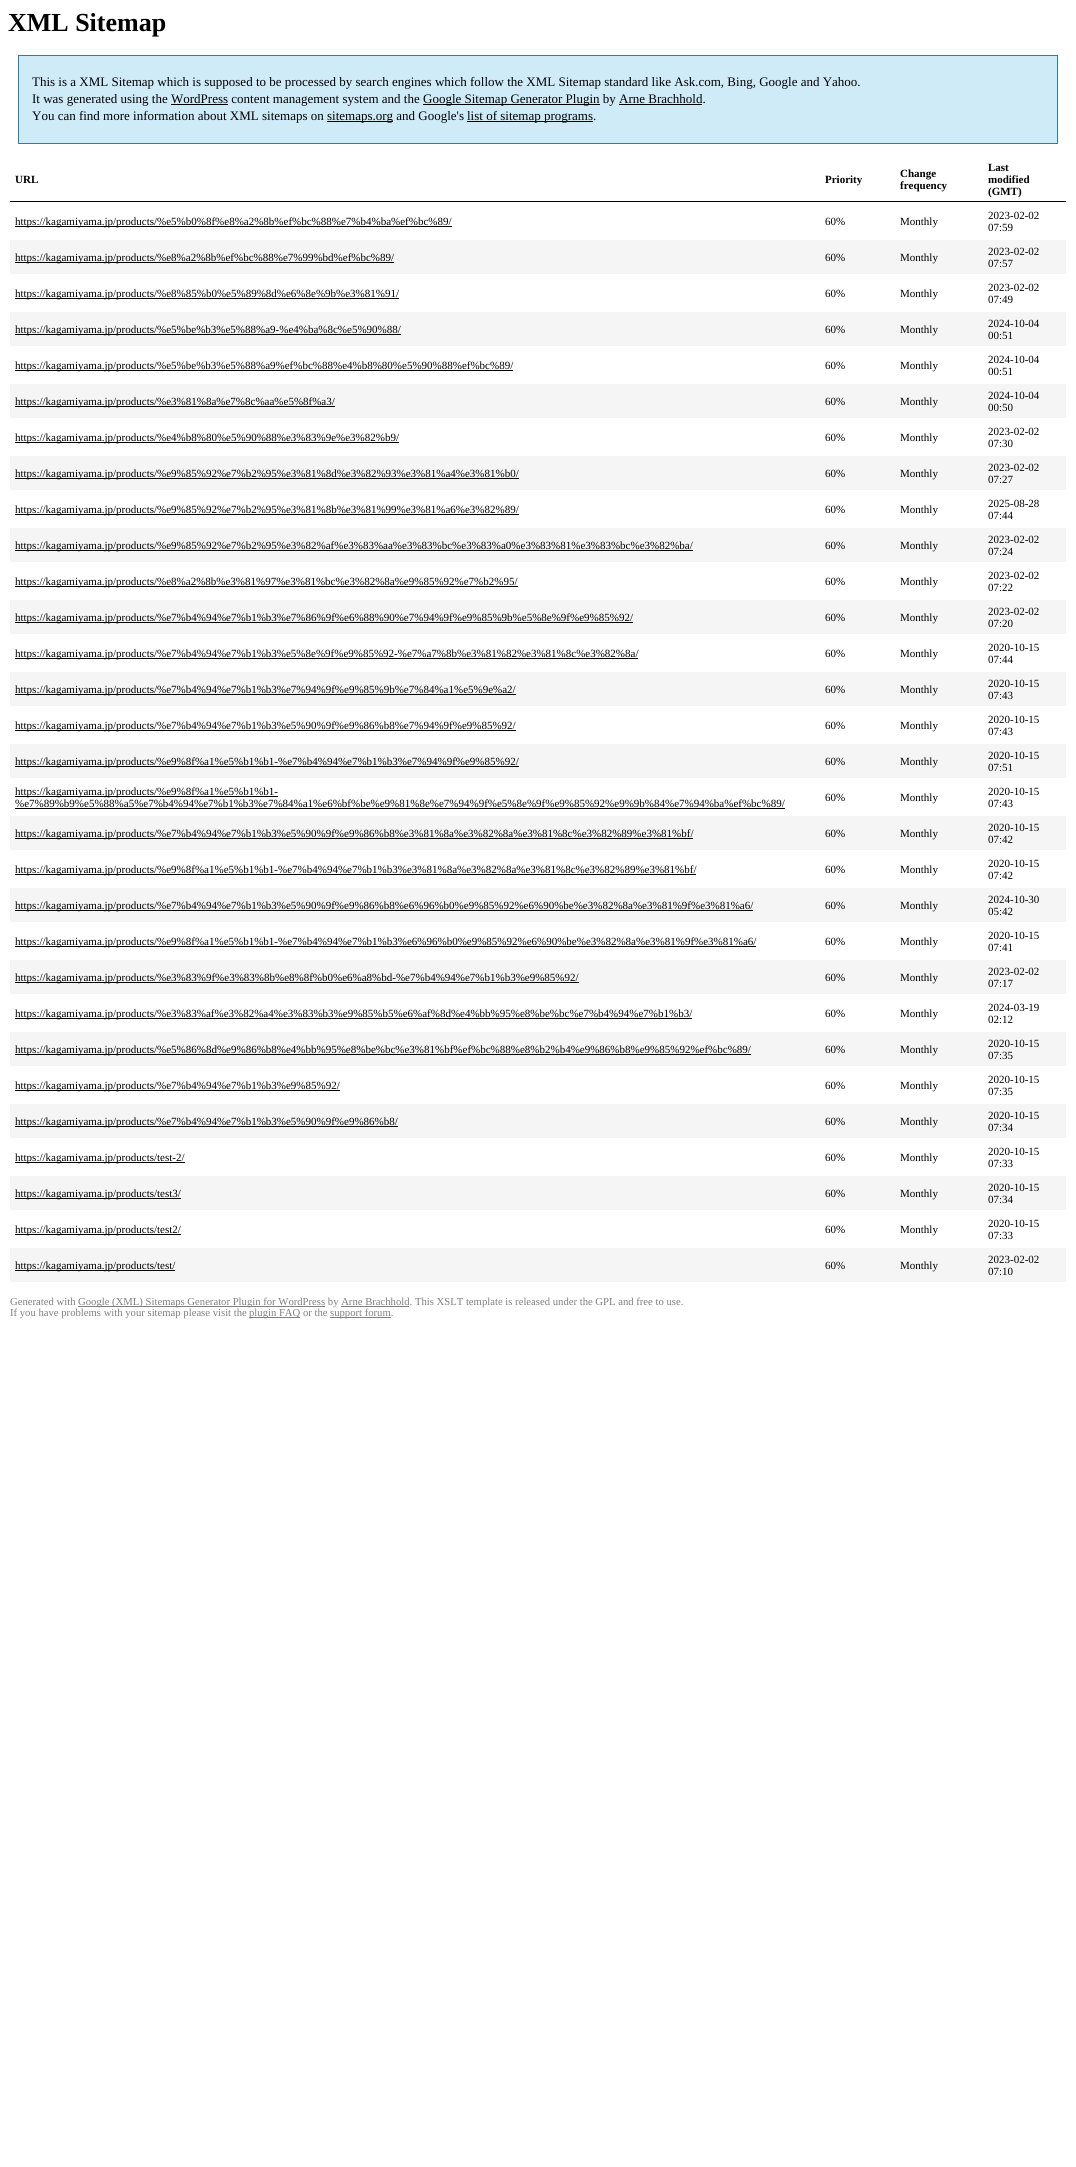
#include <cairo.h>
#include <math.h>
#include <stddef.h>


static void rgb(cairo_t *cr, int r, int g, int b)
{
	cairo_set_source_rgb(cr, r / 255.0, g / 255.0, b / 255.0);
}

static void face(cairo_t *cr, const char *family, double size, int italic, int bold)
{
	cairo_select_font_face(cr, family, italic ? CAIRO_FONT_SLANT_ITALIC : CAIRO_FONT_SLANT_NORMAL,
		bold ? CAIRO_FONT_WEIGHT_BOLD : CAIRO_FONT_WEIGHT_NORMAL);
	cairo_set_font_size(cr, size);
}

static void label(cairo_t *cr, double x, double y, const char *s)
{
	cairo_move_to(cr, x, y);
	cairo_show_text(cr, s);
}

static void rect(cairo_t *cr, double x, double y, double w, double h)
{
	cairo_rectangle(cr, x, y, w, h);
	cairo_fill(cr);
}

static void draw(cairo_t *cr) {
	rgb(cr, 255, 255, 255);
	cairo_paint(cr);
	face(cr, "Liberation Serif", 26, 0, 1);
	rgb(cr, 0, 0, 0);
	label(cr, 8, 31, "XML Sitemap");
	rgb(cr, 207, 235, 247);
	cairo_rectangle(cr, 18.5, 55.5, 1039, 88);
	cairo_fill_preserve(cr);
	rgb(cr, 37, 128, 178);
	cairo_set_line_width(cr, 1);
	cairo_stroke(cr);
	face(cr, "Liberation Serif", 13, 0, 0);
	rgb(cr, 0, 0, 0);
	label(cr, 32, 86, "This is a XML Sitemap which is supposed to be processed by search engines which follow the XML Sitemap standard like Ask.com, Bing, Google and Yahoo.");
	label(cr, 32, 103, "It was generated using the WordPress content management system and the");
	rect(cr, 423, 104, 177, 1);
	label(cr, 423, 103, "Google Sitemap Generator Plugin by Arne Brachhold.");
	rect(cr, 171, 104, 57, 1);
	rect(cr, 619, 104, 83, 1);
	label(cr, 32, 120, "You can find more information about XML sitemaps on");
	rect(cr, 327, 121, 66, 1);
	label(cr, 327, 120, "sitemaps.org and Google's");
	rect(cr, 467, 121, 126, 1);
	label(cr, 467, 120, "list of sitemap programs.");
	rect(cr, 10, 201, 1056, 1);
	face(cr, "Liberation Serif", 11, 0, 1);
	label(cr, 15, 183, "URL");
	label(cr, 825, 183, "Priority");
	label(cr, 900, 177, "Change");
	label(cr, 900, 189, "frequency");
	label(cr, 988, 171, "Last");
	label(cr, 988, 183, "modified");
	label(cr, 988, 195, "(GMT)");
	rect(cr, 15, 226, 437, 1);
	face(cr, "Liberation Serif", 11, 0, 0);
	label(cr, 15, 225, "https://kagamiyama.jp/products/%e5%b0%8f%e8%a2%8b%ef%bc%88%e7%b4%ba%ef%bc%89/");
	label(cr, 825, 225, "60%");
	label(cr, 900, 225, "Monthly");
	label(cr, 988, 219, "2023-02-02");
	label(cr, 988, 231, "07:59");
	rgb(cr, 245, 245, 245);
	rect(cr, 10, 240, 1056, 34);
	rgb(cr, 0, 0, 0);
	rect(cr, 15, 262, 379, 1);
	label(cr, 15, 261, "https://kagamiyama.jp/products/%e8%a2%8b%ef%bc%88%e7%99%bd%ef%bc%89/");
	label(cr, 825, 261, "60%");
	label(cr, 900, 261, "Monthly");
	label(cr, 988, 255, "2023-02-02");
	label(cr, 988, 267, "07:57");
	rect(cr, 15, 298, 384, 1);
	label(cr, 15, 297, "https://kagamiyama.jp/products/%e8%85%b0%e5%89%8d%e6%8e%9b%e3%81%91/");
	label(cr, 825, 297, "60%");
	label(cr, 900, 297, "Monthly");
	label(cr, 988, 291, "2023-02-02");
	label(cr, 988, 303, "07:49");
	rgb(cr, 245, 245, 245);
	rect(cr, 10, 312, 1056, 34);
	rgb(cr, 0, 0, 0);
	rect(cr, 15, 334, 386, 1);
	label(cr, 15, 333, "https://kagamiyama.jp/products/%e5%be%b3%e5%88%a9-%e4%ba%8c%e5%90%88/");
	label(cr, 825, 333, "60%");
	label(cr, 900, 333, "Monthly");
	label(cr, 988, 327, "2024-10-04");
	label(cr, 988, 339, "00:51");
	rect(cr, 15, 370, 498, 1);
	label(cr, 15, 369, "https://kagamiyama.jp/products/%e5%be%b3%e5%88%a9%ef%bc%88%e4%b8%80%e5%90%88%ef%bc%89/");
	label(cr, 825, 369, "60%");
	label(cr, 900, 369, "Monthly");
	label(cr, 988, 363, "2024-10-04");
	label(cr, 988, 375, "00:51");
	rgb(cr, 245, 245, 245);
	rect(cr, 10, 384, 1056, 34);
	rgb(cr, 0, 0, 0);
	rect(cr, 15, 406, 320, 1);
	label(cr, 15, 405, "https://kagamiyama.jp/products/%e3%81%8a%e7%8c%aa%e5%8f%a3/");
	label(cr, 825, 405, "60%");
	label(cr, 900, 405, "Monthly");
	label(cr, 988, 399, "2024-10-04");
	label(cr, 988, 411, "00:50");
	rect(cr, 15, 442, 384, 1);
	label(cr, 15, 441, "https://kagamiyama.jp/products/%e4%b8%80%e5%90%88%e3%83%9e%e3%82%b9/");
	label(cr, 825, 441, "60%");
	label(cr, 900, 441, "Monthly");
	label(cr, 988, 435, "2023-02-02");
	label(cr, 988, 447, "07:30");
	rgb(cr, 245, 245, 245);
	rect(cr, 10, 456, 1056, 34);
	rgb(cr, 0, 0, 0);
	rect(cr, 15, 478, 504, 1);
	label(cr, 15, 477, "https://kagamiyama.jp/products/%e9%85%92%e7%b2%95%e3%81%8d%e3%82%93%e3%81%a4%e3%81%b0/");
	label(cr, 825, 477, "60%");
	label(cr, 900, 477, "Monthly");
	label(cr, 988, 471, "2023-02-02");
	label(cr, 988, 483, "07:27");
	rect(cr, 15, 514, 504, 1);
	label(cr, 15, 513, "https://kagamiyama.jp/products/%e9%85%92%e7%b2%95%e3%81%8b%e3%81%99%e3%81%a6%e3%82%89/");
	label(cr, 825, 513, "60%");
	label(cr, 900, 513, "Monthly");
	label(cr, 988, 507, "2025-08-28");
	label(cr, 988, 519, "07:44");
	rgb(cr, 245, 245, 245);
	rect(cr, 10, 528, 1056, 34);
	rgb(cr, 0, 0, 0);
	rect(cr, 15, 550, 678, 1);
	label(cr, 15, 549, "https://kagamiyama.jp/products/%e9%85%92%e7%b2%95%e3%82%af%e3%83%aa%e3%83%bc%e3%83%a0%e3%83%81%e3%83%bc%e3%82%ba/");
	label(cr, 825, 549, "60%");
	label(cr, 900, 549, "Monthly");
	label(cr, 988, 543, "2023-02-02");
	label(cr, 988, 555, "07:24");
	rect(cr, 15, 586, 503, 1);
	label(cr, 15, 585, "https://kagamiyama.jp/products/%e8%a2%8b%e3%81%97%e3%81%bc%e3%82%8a%e9%85%92%e7%b2%95/");
	label(cr, 825, 585, "60%");
	label(cr, 900, 585, "Monthly");
	label(cr, 988, 579, "2023-02-02");
	label(cr, 988, 591, "07:22");
	rgb(cr, 245, 245, 245);
	rect(cr, 10, 600, 1056, 34);
	rgb(cr, 0, 0, 0);
	rect(cr, 15, 622, 618, 1);
	label(cr, 15, 621, "https://kagamiyama.jp/products/%e7%b4%94%e7%b1%b3%e7%86%9f%e6%88%90%e7%94%9f%e9%85%9b%e5%8e%9f%e9%85%92/");
	label(cr, 825, 621, "60%");
	label(cr, 900, 621, "Monthly");
	label(cr, 988, 615, "2023-02-02");
	label(cr, 988, 627, "07:20");
	rect(cr, 15, 658, 623, 1);
	label(cr, 15, 657, "https://kagamiyama.jp/products/%e7%b4%94%e7%b1%b3%e5%8e%9f%e9%85%92-%e7%a7%8b%e3%81%82%e3%81%8c%e3%82%8a/");
	label(cr, 825, 657, "60%");
	label(cr, 900, 657, "Monthly");
	label(cr, 988, 651, "2020-10-15");
	label(cr, 988, 663, "07:44");
	rgb(cr, 245, 245, 245);
	rect(cr, 10, 672, 1056, 34);
	rgb(cr, 0, 0, 0);
	rect(cr, 15, 694, 501, 1);
	label(cr, 15, 693, "https://kagamiyama.jp/products/%e7%b4%94%e7%b1%b3%e7%94%9f%e9%85%9b%e7%84%a1%e5%9e%a2/");
	label(cr, 825, 693, "60%");
	label(cr, 900, 693, "Monthly");
	label(cr, 988, 687, "2020-10-15");
	label(cr, 988, 699, "07:43");
	rect(cr, 15, 730, 501, 1);
	label(cr, 15, 729, "https://kagamiyama.jp/products/%e7%b4%94%e7%b1%b3%e5%90%9f%e9%86%b8%e7%94%9f%e9%85%92/");
	label(cr, 825, 729, "60%");
	label(cr, 900, 729, "Monthly");
	label(cr, 988, 723, "2020-10-15");
	label(cr, 988, 735, "07:43");
	rgb(cr, 245, 245, 245);
	rect(cr, 10, 744, 1056, 34);
	rgb(cr, 0, 0, 0);
	rect(cr, 15, 766, 504, 1);
	label(cr, 15, 765, "https://kagamiyama.jp/products/%e9%8f%a1%e5%b1%b1-%e7%b4%94%e7%b1%b3%e7%94%9f%e9%85%92/");
	label(cr, 825, 765, "60%");
	label(cr, 900, 765, "Monthly");
	label(cr, 988, 759, "2020-10-15");
	label(cr, 988, 771, "07:51");
	rect(cr, 15, 796, 263, 1);
	label(cr, 15, 795, "https://kagamiyama.jp/products/%e9%8f%a1%e5%b1%b1-");
	label(cr, 15, 807, "%e7%89%b9%e5%88%a5%e7%b4%94%e7%b1%b3%e7%84%a1%e6%bf%be%e9%81%8e%e7%94%9f%e5%8e%9f%e9%85%92%e9%9b%84%e7%94%ba%ef%bc%89/");
	rect(cr, 15, 808, 770, 1);
	label(cr, 825, 801, "60%");
	label(cr, 900, 801, "Monthly");
	label(cr, 988, 795, "2020-10-15");
	label(cr, 988, 807, "07:43");
	rgb(cr, 245, 245, 245);
	rect(cr, 10, 816, 1056, 34);
	rgb(cr, 0, 0, 0);
	rect(cr, 15, 838, 678, 1);
	label(cr, 15, 837, "https://kagamiyama.jp/products/%e7%b4%94%e7%b1%b3%e5%90%9f%e9%86%b8%e3%81%8a%e3%82%8a%e3%81%8c%e3%82%89%e3%81%bf/");
	label(cr, 825, 837, "60%");
	label(cr, 900, 837, "Monthly");
	label(cr, 988, 831, "2020-10-15");
	label(cr, 988, 843, "07:42");
	rect(cr, 15, 874, 681, 1);
	label(cr, 15, 873, "https://kagamiyama.jp/products/%e9%8f%a1%e5%b1%b1-%e7%b4%94%e7%b1%b3%e3%81%8a%e3%82%8a%e3%81%8c%e3%82%89%e3%81%bf/");
	label(cr, 825, 873, "60%");
	label(cr, 900, 873, "Monthly");
	label(cr, 988, 867, "2020-10-15");
	label(cr, 988, 879, "07:42");
	rgb(cr, 245, 245, 245);
	rect(cr, 10, 888, 1056, 34);
	rgb(cr, 0, 0, 0);
	rect(cr, 15, 910, 738, 1);
	label(cr, 15, 909, "https://kagamiyama.jp/products/%e7%b4%94%e7%b1%b3%e5%90%9f%e9%86%b8%e6%96%b0%e9%85%92%e6%90%be%e3%82%8a%e3%81%9f%e3%81%a6/");
	label(cr, 825, 909, "60%");
	label(cr, 900, 909, "Monthly");
	label(cr, 988, 903, "2024-10-30");
	label(cr, 988, 915, "05:42");
	rect(cr, 15, 946, 741, 1);
	label(cr, 15, 945, "https://kagamiyama.jp/products/%e9%8f%a1%e5%b1%b1-%e7%b4%94%e7%b1%b3%e6%96%b0%e9%85%92%e6%90%be%e3%82%8a%e3%81%9f%e3%81%a6/");
	label(cr, 825, 945, "60%");
	label(cr, 900, 945, "Monthly");
	label(cr, 988, 939, "2020-10-15");
	label(cr, 988, 951, "07:41");
	rgb(cr, 245, 245, 245);
	rect(cr, 10, 960, 1056, 34);
	rgb(cr, 0, 0, 0);
	rect(cr, 15, 982, 564, 1);
	label(cr, 15, 981, "https://kagamiyama.jp/products/%e3%83%9f%e3%83%8b%e8%8f%b0%e6%a8%bd-%e7%b4%94%e7%b1%b3%e9%85%92/");
	label(cr, 825, 981, "60%");
	label(cr, 900, 981, "Monthly");
	label(cr, 988, 975, "2023-02-02");
	label(cr, 988, 987, "07:17");
	rect(cr, 15, 1018, 677, 1);
	label(cr, 15, 1017, "https://kagamiyama.jp/products/%e3%83%af%e3%82%a4%e3%83%b3%e9%85%b5%e6%af%8d%e4%bb%95%e8%be%bc%e7%b4%94%e7%b1%b3/");
	label(cr, 825, 1017, "60%");
	label(cr, 900, 1017, "Monthly");
	label(cr, 988, 1011, "2024-03-19");
	label(cr, 988, 1023, "02:12");
	rgb(cr, 245, 245, 245);
	rect(cr, 10, 1032, 1056, 34);
	rgb(cr, 0, 0, 0);
	rect(cr, 15, 1054, 736, 1);
	label(cr, 15, 1053, "https://kagamiyama.jp/products/%e5%86%8d%e9%86%b8%e4%bb%95%e8%be%bc%e3%81%bf%ef%bc%88%e8%b2%b4%e9%86%b8%e9%85%92%ef%bc%89/");
	label(cr, 825, 1053, "60%");
	label(cr, 900, 1053, "Monthly");
	label(cr, 988, 1047, "2020-10-15");
	label(cr, 988, 1059, "07:35");
	rect(cr, 15, 1090, 325, 1);
	label(cr, 15, 1089, "https://kagamiyama.jp/products/%e7%b4%94%e7%b1%b3%e9%85%92/");
	label(cr, 825, 1089, "60%");
	label(cr, 900, 1089, "Monthly");
	label(cr, 988, 1083, "2020-10-15");
	label(cr, 988, 1095, "07:35");
	rgb(cr, 245, 245, 245);
	rect(cr, 10, 1104, 1056, 34);
	rgb(cr, 0, 0, 0);
	rect(cr, 15, 1126, 383, 1);
	label(cr, 15, 1125, "https://kagamiyama.jp/products/%e7%b4%94%e7%b1%b3%e5%90%9f%e9%86%b8/");
	label(cr, 825, 1125, "60%");
	label(cr, 900, 1125, "Monthly");
	label(cr, 988, 1119, "2020-10-15");
	label(cr, 988, 1131, "07:34");
	rect(cr, 15, 1162, 170, 1);
	label(cr, 15, 1161, "https://kagamiyama.jp/products/test-2/");
	label(cr, 825, 1161, "60%");
	label(cr, 900, 1161, "Monthly");
	label(cr, 988, 1155, "2020-10-15");
	label(cr, 988, 1167, "07:33");
	rgb(cr, 245, 245, 245);
	rect(cr, 10, 1176, 1056, 34);
	rgb(cr, 0, 0, 0);
	rect(cr, 15, 1198, 166, 1);
	label(cr, 15, 1197, "https://kagamiyama.jp/products/test3/");
	label(cr, 825, 1197, "60%");
	label(cr, 900, 1197, "Monthly");
	label(cr, 988, 1191, "2020-10-15");
	label(cr, 988, 1203, "07:34");
	rect(cr, 15, 1234, 166, 1);
	label(cr, 15, 1233, "https://kagamiyama.jp/products/test2/");
	label(cr, 825, 1233, "60%");
	label(cr, 900, 1233, "Monthly");
	label(cr, 988, 1227, "2020-10-15");
	label(cr, 988, 1239, "07:33");
	rgb(cr, 245, 245, 245);
	rect(cr, 10, 1248, 1056, 34);
	rgb(cr, 0, 0, 0);
	rect(cr, 15, 1270, 160, 1);
	label(cr, 15, 1269, "https://kagamiyama.jp/products/test/");
	label(cr, 825, 1269, "60%");
	label(cr, 900, 1269, "Monthly");
	label(cr, 988, 1263, "2023-02-02");
	label(cr, 988, 1275, "07:10");
	face(cr, "Liberation Serif", 10.67, 0, 0);
	rgb(cr, 128, 128, 128);
	label(cr, 10, 1305, "Generated with");
	rect(cr, 78, 1306, 247, 1);
	label(cr, 78, 1305, "Google (XML) Sitemaps Generator Plugin for WordPress by Arne Brachhold. This XSLT template is released under the GPL and free to use.");
	rect(cr, 341, 1306, 68, 1);
	label(cr, 10, 1316, "If you have problems with your sitemap please visit the");
	rect(cr, 249, 1317, 51, 1);
	label(cr, 249, 1316, "plugin FAQ or the");
	rect(cr, 330, 1317, 61, 1);
	label(cr, 330, 1316, "support forum.");
}

int main(void) {
	cairo_surface_t *surface = cairo_image_surface_create(CAIRO_FORMAT_RGB24, 1076, 2167);
	cairo_t *cr = cairo_create(surface);
	cairo_font_options_t *options = cairo_font_options_create();
	cairo_font_options_set_hint_metrics(options, CAIRO_HINT_METRICS_OFF);
	cairo_font_options_set_hint_style(options, CAIRO_HINT_STYLE_NONE);
	cairo_set_font_options(cr, options);
	cairo_set_miter_limit(cr, 4);
	draw(cr);
	cairo_surface_write_to_png(surface, "render.png");
	cairo_font_options_destroy(options);
	cairo_destroy(cr);
	cairo_surface_destroy(surface);
	return 0;
}
